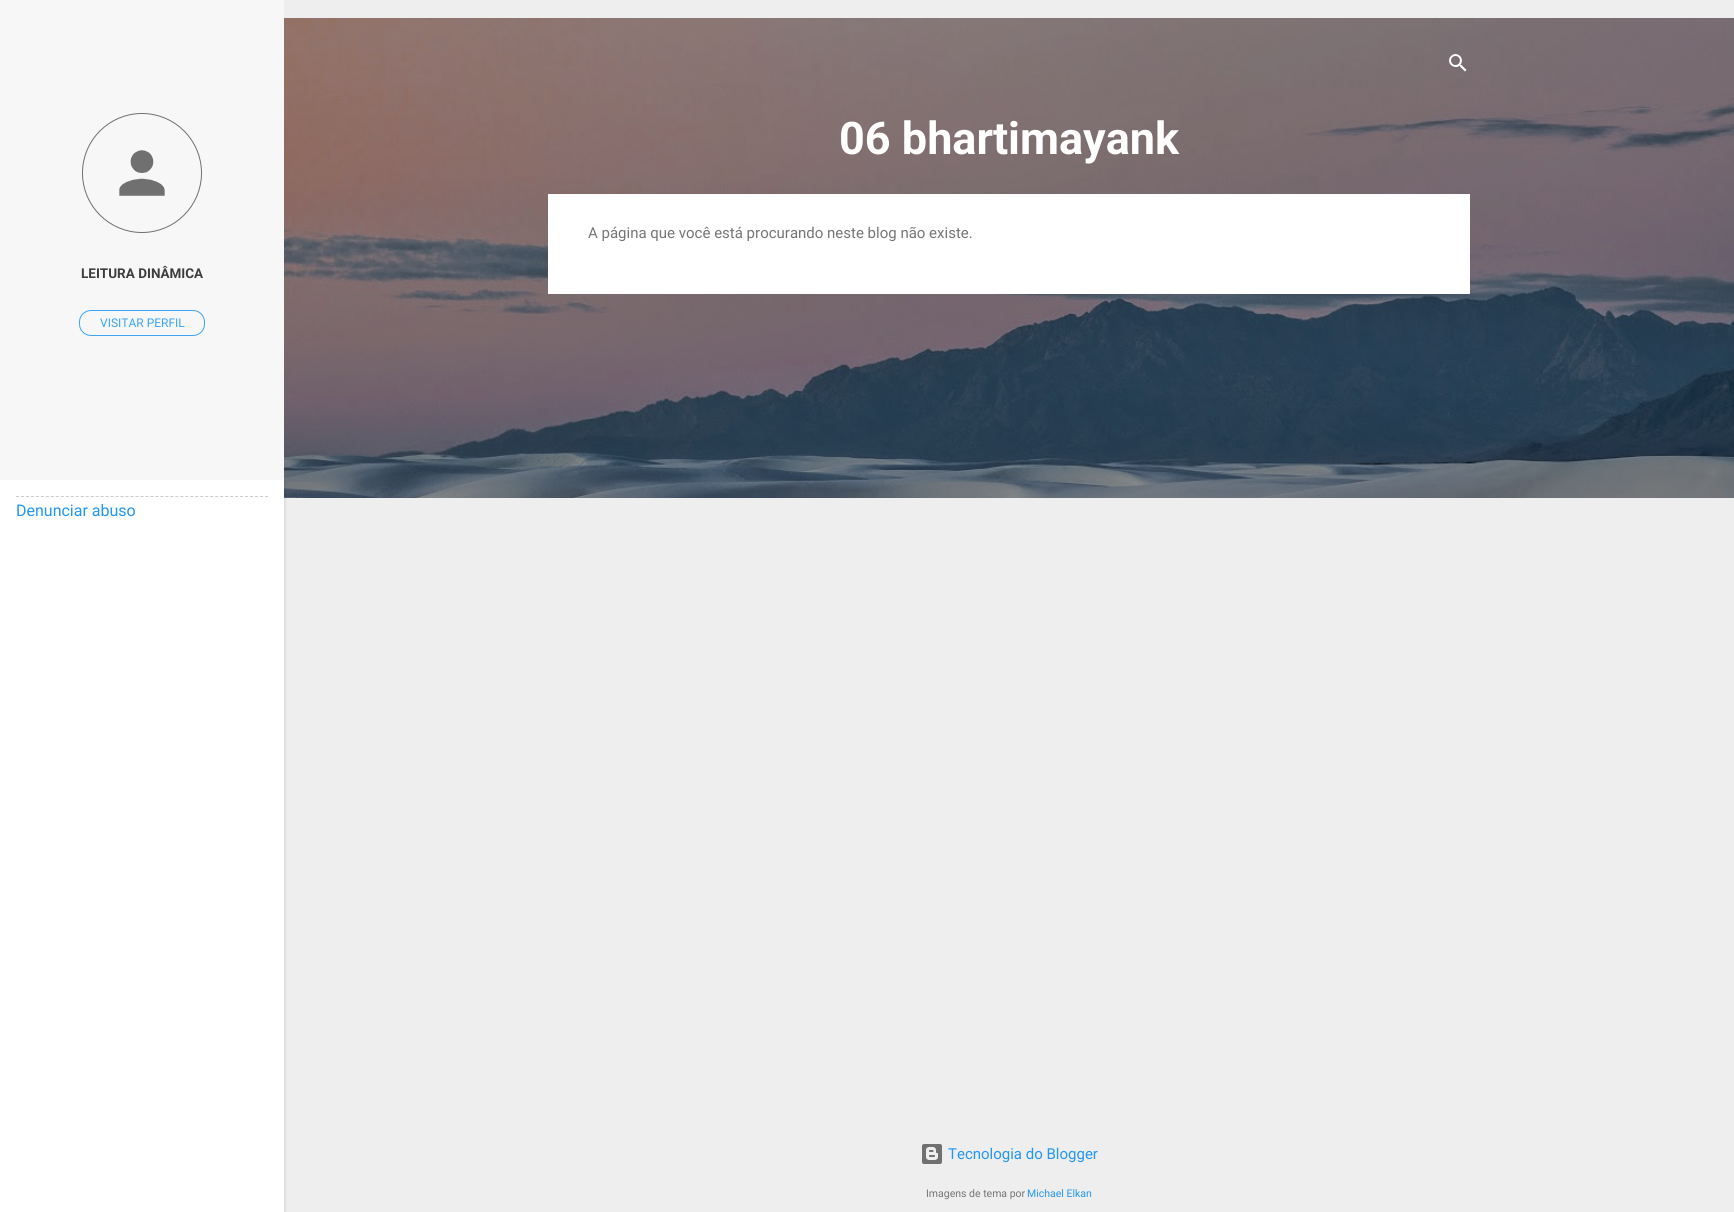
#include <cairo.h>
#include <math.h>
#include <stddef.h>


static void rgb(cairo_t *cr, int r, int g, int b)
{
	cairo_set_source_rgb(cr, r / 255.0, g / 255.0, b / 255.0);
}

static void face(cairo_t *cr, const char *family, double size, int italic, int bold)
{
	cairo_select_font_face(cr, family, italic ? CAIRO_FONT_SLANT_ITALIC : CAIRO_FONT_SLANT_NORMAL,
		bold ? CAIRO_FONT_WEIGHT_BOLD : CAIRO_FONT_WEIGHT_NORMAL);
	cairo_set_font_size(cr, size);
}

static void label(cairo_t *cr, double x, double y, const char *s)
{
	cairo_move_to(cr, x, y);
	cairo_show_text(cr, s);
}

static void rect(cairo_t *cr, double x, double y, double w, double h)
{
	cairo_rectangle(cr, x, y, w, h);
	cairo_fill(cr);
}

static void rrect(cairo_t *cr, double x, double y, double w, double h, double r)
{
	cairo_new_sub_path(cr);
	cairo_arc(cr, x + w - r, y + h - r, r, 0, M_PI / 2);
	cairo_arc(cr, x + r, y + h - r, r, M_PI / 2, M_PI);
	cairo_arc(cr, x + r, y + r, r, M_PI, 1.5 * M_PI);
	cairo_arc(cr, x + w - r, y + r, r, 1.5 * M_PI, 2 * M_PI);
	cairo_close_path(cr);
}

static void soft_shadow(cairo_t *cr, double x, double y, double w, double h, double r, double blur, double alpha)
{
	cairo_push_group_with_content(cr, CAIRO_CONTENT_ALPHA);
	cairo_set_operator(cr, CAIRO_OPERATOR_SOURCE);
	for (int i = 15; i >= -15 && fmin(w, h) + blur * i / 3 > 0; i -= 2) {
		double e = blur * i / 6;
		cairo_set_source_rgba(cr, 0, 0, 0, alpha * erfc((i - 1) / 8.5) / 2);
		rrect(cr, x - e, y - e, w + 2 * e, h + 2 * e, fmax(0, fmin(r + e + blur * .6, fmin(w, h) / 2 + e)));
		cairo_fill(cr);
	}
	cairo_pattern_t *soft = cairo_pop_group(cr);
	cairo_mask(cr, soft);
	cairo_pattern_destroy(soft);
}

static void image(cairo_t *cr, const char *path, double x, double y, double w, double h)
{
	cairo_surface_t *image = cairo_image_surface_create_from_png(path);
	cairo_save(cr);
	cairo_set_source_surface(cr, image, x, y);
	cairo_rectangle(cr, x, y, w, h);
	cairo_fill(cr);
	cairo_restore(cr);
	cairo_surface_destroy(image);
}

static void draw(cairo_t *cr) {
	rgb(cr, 238, 238, 238);
	cairo_paint(cr);
	image(cr, "image1.png", 284, 18, 1450, 480);
	rgb(cr, 0, 0, 0);
	soft_shadow(cr, 1, 481, 284, 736, 0, 1.5, 0.1);
	rgb(cr, 255, 255, 255);
	rect(cr, 0, 480, 284, 732);
	rgb(cr, 247, 247, 247);
	rect(cr, 0, 0, 284, 480);
	cairo_arc(cr, 142, 173, 59.5, 0, 2 * M_PI);
	rgb(cr, 112, 112, 112);
	cairo_set_line_width(cr, 1);
	cairo_stroke(cr);
	image(cr, "image0.png", 119, 150, 46, 46);
	face(cr, "Roboto", 13.5, 0, 1);
	rgb(cr, 61, 61, 61);
	label(cr, 81, 278, "LEITURA DINÂMICA");
	rrect(cr, 79.5, 310.5, 125, 25, 11.5);
	rgb(cr, 61, 163, 244);
	cairo_stroke(cr);
	face(cr, "Roboto", 12, 0, 0);
	label(cr, 100, 327, "VISITAR PERFIL");
	cairo_new_path(cr);
	cairo_move_to(cr, 16, 496.5);
	cairo_line_to(cr, 268, 496.5);
	rgb(cr, 204, 204, 204);
	cairo_set_dash(cr, (double[]){3, 1.98}, 2, 0);
	cairo_stroke(cr);
	face(cr, "Roboto", 16, 0, 0);
	rgb(cr, 33, 150, 243);
	label(cr, 16, 516, "Denunciar abuso");
	image(cr, "image2.png", 1449, 54, 18, 18);
	face(cr, "Roboto", 45, 0, 1);
	rgb(cr, 255, 255, 255);
	label(cr, 839, 154, "06 bhartimayank");
	rect(cr, 548, 194, 922, 100);
	face(cr, "Roboto", 15, 0, 0);
	rgb(cr, 117, 117, 117);
	label(cr, 588, 238, "A página que você está procurando neste blog não existe.");
	image(cr, "image3.png", 922, 1144, 20, 20);
	rgb(cr, 33, 150, 243);
	label(cr, 948, 1159, "Tecnologia do Blogger");
	face(cr, "Roboto", 10.5, 0, 0);
	rgb(cr, 117, 117, 117);
	label(cr, 926, 1197, "Imagens de tema por");
	rgb(cr, 33, 150, 243);
	label(cr, 1027, 1197, "Michael Elkan");
}

int main(void) {
	cairo_surface_t *surface = cairo_image_surface_create(CAIRO_FORMAT_RGB24, 1734, 1212);
	cairo_t *cr = cairo_create(surface);
	cairo_font_options_t *options = cairo_font_options_create();
	cairo_font_options_set_hint_metrics(options, CAIRO_HINT_METRICS_OFF);
	cairo_font_options_set_hint_style(options, CAIRO_HINT_STYLE_NONE);
	cairo_set_font_options(cr, options);
	cairo_set_miter_limit(cr, 4);
	draw(cr);
	cairo_surface_write_to_png(surface, "render.png");
	cairo_font_options_destroy(options);
	cairo_destroy(cr);
	cairo_surface_destroy(surface);
	return 0;
}
